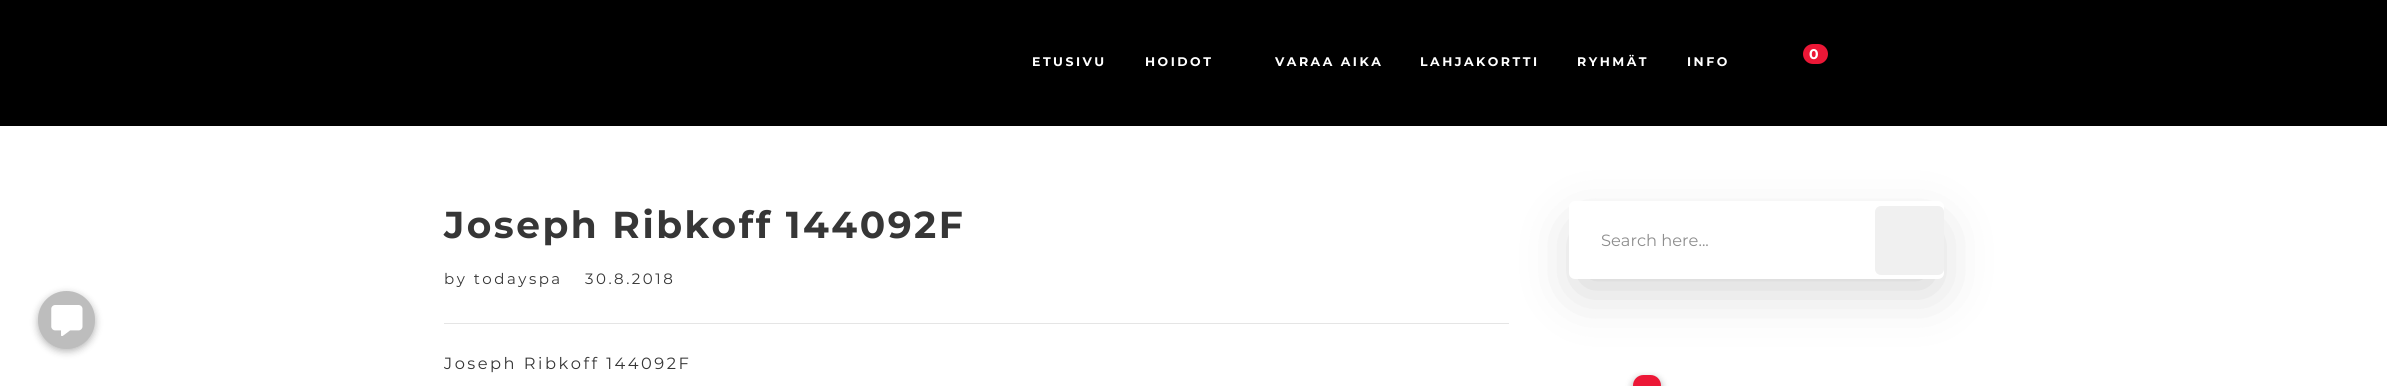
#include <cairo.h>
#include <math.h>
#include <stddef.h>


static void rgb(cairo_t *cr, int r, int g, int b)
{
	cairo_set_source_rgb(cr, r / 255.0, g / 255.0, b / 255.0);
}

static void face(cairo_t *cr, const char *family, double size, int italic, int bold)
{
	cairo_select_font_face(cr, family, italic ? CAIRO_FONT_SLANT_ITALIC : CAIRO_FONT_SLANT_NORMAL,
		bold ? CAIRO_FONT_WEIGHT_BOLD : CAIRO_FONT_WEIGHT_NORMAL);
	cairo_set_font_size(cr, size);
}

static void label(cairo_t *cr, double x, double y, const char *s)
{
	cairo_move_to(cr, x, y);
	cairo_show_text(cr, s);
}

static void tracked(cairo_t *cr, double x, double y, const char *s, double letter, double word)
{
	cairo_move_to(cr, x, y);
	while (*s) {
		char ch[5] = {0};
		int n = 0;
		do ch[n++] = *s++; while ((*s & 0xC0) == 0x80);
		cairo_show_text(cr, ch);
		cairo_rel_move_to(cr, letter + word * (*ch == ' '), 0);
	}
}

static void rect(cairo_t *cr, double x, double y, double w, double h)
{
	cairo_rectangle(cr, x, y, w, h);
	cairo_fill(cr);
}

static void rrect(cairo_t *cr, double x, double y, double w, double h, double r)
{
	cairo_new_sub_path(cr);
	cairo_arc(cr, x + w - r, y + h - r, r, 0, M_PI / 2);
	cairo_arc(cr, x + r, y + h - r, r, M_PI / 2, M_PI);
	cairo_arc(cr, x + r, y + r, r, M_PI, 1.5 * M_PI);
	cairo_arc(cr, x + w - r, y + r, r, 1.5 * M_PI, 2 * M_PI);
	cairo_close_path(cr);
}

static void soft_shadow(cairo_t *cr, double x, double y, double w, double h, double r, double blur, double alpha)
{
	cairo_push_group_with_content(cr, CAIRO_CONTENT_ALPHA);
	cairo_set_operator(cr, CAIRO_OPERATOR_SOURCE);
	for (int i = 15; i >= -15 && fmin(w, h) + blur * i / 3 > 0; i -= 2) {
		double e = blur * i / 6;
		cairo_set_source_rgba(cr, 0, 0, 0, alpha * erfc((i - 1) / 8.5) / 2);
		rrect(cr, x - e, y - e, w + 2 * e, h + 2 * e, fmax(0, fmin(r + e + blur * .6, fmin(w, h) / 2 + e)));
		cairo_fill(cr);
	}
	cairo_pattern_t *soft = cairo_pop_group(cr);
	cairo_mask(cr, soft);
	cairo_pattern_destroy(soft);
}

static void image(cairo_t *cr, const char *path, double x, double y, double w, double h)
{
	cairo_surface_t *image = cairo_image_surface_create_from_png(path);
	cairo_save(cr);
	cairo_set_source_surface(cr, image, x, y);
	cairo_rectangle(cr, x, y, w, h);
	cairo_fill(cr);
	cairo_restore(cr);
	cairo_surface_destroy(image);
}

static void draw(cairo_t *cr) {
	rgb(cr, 255, 255, 255);
	cairo_paint(cr);
	rgb(cr, 0, 0, 0);
	soft_shadow(cr, 38, 294, 57, 57, 28.5, 4, 0.3);
	rgb(cr, 189, 189, 189);
	rrect(cr, 39.5, 292.5, 54, 55, 27);
	cairo_fill_preserve(cr);
	cairo_set_line_width(cr, 3);
	cairo_stroke(cr);
	image(cr, "image0.png", 51, 305, 32, 31);
	rgb(cr, 0, 0, 0);
	rect(cr, 0, 0, 2387, 126);
	face(cr, "Montserrat", 12.5, 0, 1);
	rgb(cr, 255, 255, 255);
	tracked(cr, 1032, 66, "ETUSIVU", 2.5, 0);
	tracked(cr, 1145, 66, "HOIDOT", 2.5, 0);
	tracked(cr, 1275, 66, "VARAA AIKA", 2.5, 0);
	tracked(cr, 1420, 66, "LAHJAKORTTI", 2.5, 0);
	tracked(cr, 1577, 66, "RYHMÄT", 2.5, 0);
	tracked(cr, 1687, 66, "INFO", 2.5, 0);
	rgb(cr, 236, 23, 54);
	rrect(cr, 1803, 44, 25, 20, 10);
	cairo_fill(cr);
	face(cr, "Montserrat", 14, 0, 1);
	rgb(cr, 255, 255, 255);
	tracked(cr, 1809, 59, "0", 2.5, 0);
	face(cr, "Montserrat", 37.5, 0, 1);
	rgb(cr, 54, 54, 54);
	tracked(cr, 444, 238, "Joseph Ribkoff 144092F", 2.5, 0);
	rgb(cr, 229, 229, 229);
	rect(cr, 444, 323, 1065, 1);
	face(cr, "Montserrat", 15, 0, 0);
	rgb(cr, 54, 54, 54);
	tracked(cr, 444, 284, "by todayspa", 2.5, 0);
	tracked(cr, 585, 284, "30.8.2018", 2.5, 0);
	face(cr, "Montserrat", 16.25, 0, 0);
	tracked(cr, 444, 369, "Joseph Ribkoff 144092F", 2.5, 0);
	rgb(cr, 0, 0, 0);
	soft_shadow(cr, 1580, 231, 353, 55, 0, 28, 0.2);
	rgb(cr, 255, 255, 255);
	rrect(cr, 1569, 201, 375, 78, 6);
	cairo_fill(cr);
	rgb(cr, 141, 141, 141);
	label(cr, 1601, 246, "Search here...");
	rgb(cr, 240, 240, 240);
	rrect(cr, 1875, 206, 69, 69, 6);
	cairo_fill(cr);
	rgb(cr, 0, 0, 0);
	soft_shadow(cr, 1631, 376, 32, 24, 12, 3, 0.2);
	rgb(cr, 236, 23, 54);
	rrect(cr, 1633, 375, 28, 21, 10.5);
	cairo_fill(cr);
}

int main(void) {
	cairo_surface_t *surface = cairo_image_surface_create(CAIRO_FORMAT_RGB24, 2387, 386);
	cairo_t *cr = cairo_create(surface);
	cairo_font_options_t *options = cairo_font_options_create();
	cairo_font_options_set_hint_metrics(options, CAIRO_HINT_METRICS_OFF);
	cairo_font_options_set_hint_style(options, CAIRO_HINT_STYLE_NONE);
	cairo_set_font_options(cr, options);
	cairo_set_miter_limit(cr, 4);
	draw(cr);
	cairo_surface_write_to_png(surface, "render.png");
	cairo_font_options_destroy(options);
	cairo_destroy(cr);
	cairo_surface_destroy(surface);
	return 0;
}
